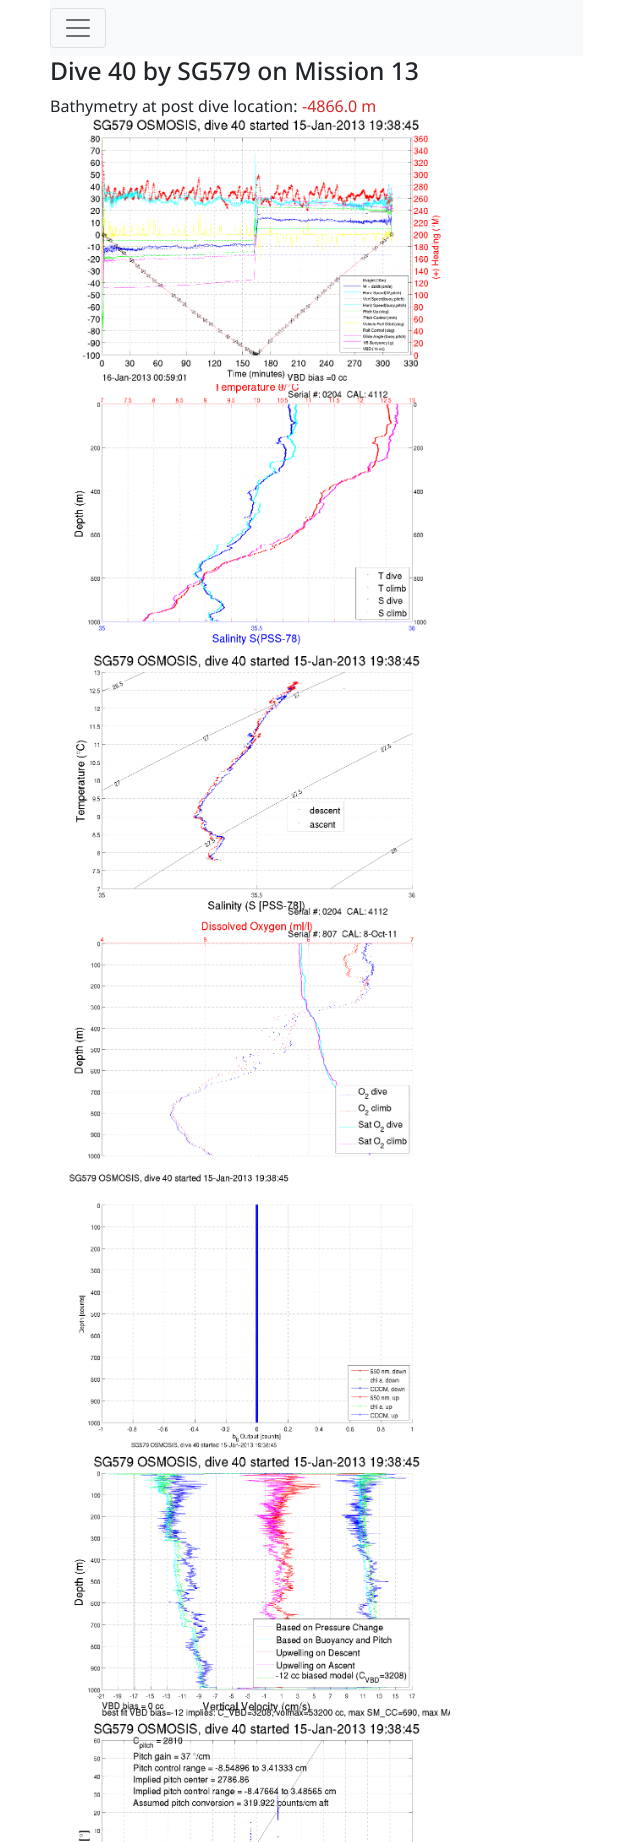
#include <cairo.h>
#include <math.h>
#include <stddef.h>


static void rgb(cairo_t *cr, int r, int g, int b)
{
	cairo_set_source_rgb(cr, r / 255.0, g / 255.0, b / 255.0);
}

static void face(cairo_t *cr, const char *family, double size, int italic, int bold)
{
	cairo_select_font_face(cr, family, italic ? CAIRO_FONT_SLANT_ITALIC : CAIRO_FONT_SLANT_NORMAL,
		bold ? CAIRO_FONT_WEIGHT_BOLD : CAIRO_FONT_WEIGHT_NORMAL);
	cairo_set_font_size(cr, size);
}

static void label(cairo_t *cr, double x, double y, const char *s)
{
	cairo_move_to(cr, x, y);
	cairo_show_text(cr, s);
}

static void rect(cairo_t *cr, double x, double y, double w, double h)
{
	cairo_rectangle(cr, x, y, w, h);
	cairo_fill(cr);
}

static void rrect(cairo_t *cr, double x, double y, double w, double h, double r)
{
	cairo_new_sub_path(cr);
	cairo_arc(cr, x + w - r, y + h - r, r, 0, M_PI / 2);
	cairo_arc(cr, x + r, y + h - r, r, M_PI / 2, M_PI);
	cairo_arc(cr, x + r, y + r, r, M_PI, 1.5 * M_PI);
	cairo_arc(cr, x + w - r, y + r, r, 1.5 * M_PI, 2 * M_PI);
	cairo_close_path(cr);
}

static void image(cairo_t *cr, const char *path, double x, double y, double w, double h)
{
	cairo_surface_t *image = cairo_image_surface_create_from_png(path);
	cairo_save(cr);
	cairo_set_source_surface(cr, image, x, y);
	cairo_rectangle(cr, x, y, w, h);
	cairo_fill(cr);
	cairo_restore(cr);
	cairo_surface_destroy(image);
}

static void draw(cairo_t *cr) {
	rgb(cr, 255, 255, 255);
	cairo_paint(cr);
	rgb(cr, 248, 249, 250);
	rect(cr, 50, 0, 533, 56);
	rrect(cr, 50.5, 8.5, 55, 39, 3.5);
	rgb(cr, 223, 224, 225);
	cairo_set_line_width(cr, 1);
	cairo_stroke(cr);
	image(cr, "image0.png", 66, 19, 24, 18);
	face(cr, "Noto Sans Medium", 24.6, 0, 0);
	rgb(cr, 33, 37, 41);
	label(cr, 50, 80, "Dive 40 by SG579 on Mission 13");
	face(cr, "Noto Sans", 16, 0, 0);
	label(cr, 50, 112, "Bathymetry at post dive location:");
	rgb(cr, 217, 39, 39);
	label(cr, 302, 112, "-4866.0 m");
	image(cr, "image1.png", 82, 119, 359, 262);
	image(cr, "image2.png", 74, 384, 353, 262);
	image(cr, "image3.png", 76, 655, 344, 260);
	image(cr, "image4.png", 68, 921, 346, 262);
	image(cr, "image5.png", 78, 1203, 335, 245);
	image(cr, "image6.png", 74, 1456, 376, 262);
	image(cr, "image7.png", 78, 1723, 342, 119);
}

int main(void) {
	cairo_surface_t *surface = cairo_image_surface_create(CAIRO_FORMAT_RGB24, 633, 1842);
	cairo_t *cr = cairo_create(surface);
	cairo_font_options_t *options = cairo_font_options_create();
	cairo_font_options_set_hint_metrics(options, CAIRO_HINT_METRICS_OFF);
	cairo_font_options_set_hint_style(options, CAIRO_HINT_STYLE_NONE);
	cairo_set_font_options(cr, options);
	cairo_set_miter_limit(cr, 4);
	draw(cr);
	cairo_surface_write_to_png(surface, "render.png");
	cairo_font_options_destroy(options);
	cairo_destroy(cr);
	cairo_surface_destroy(surface);
	return 0;
}
